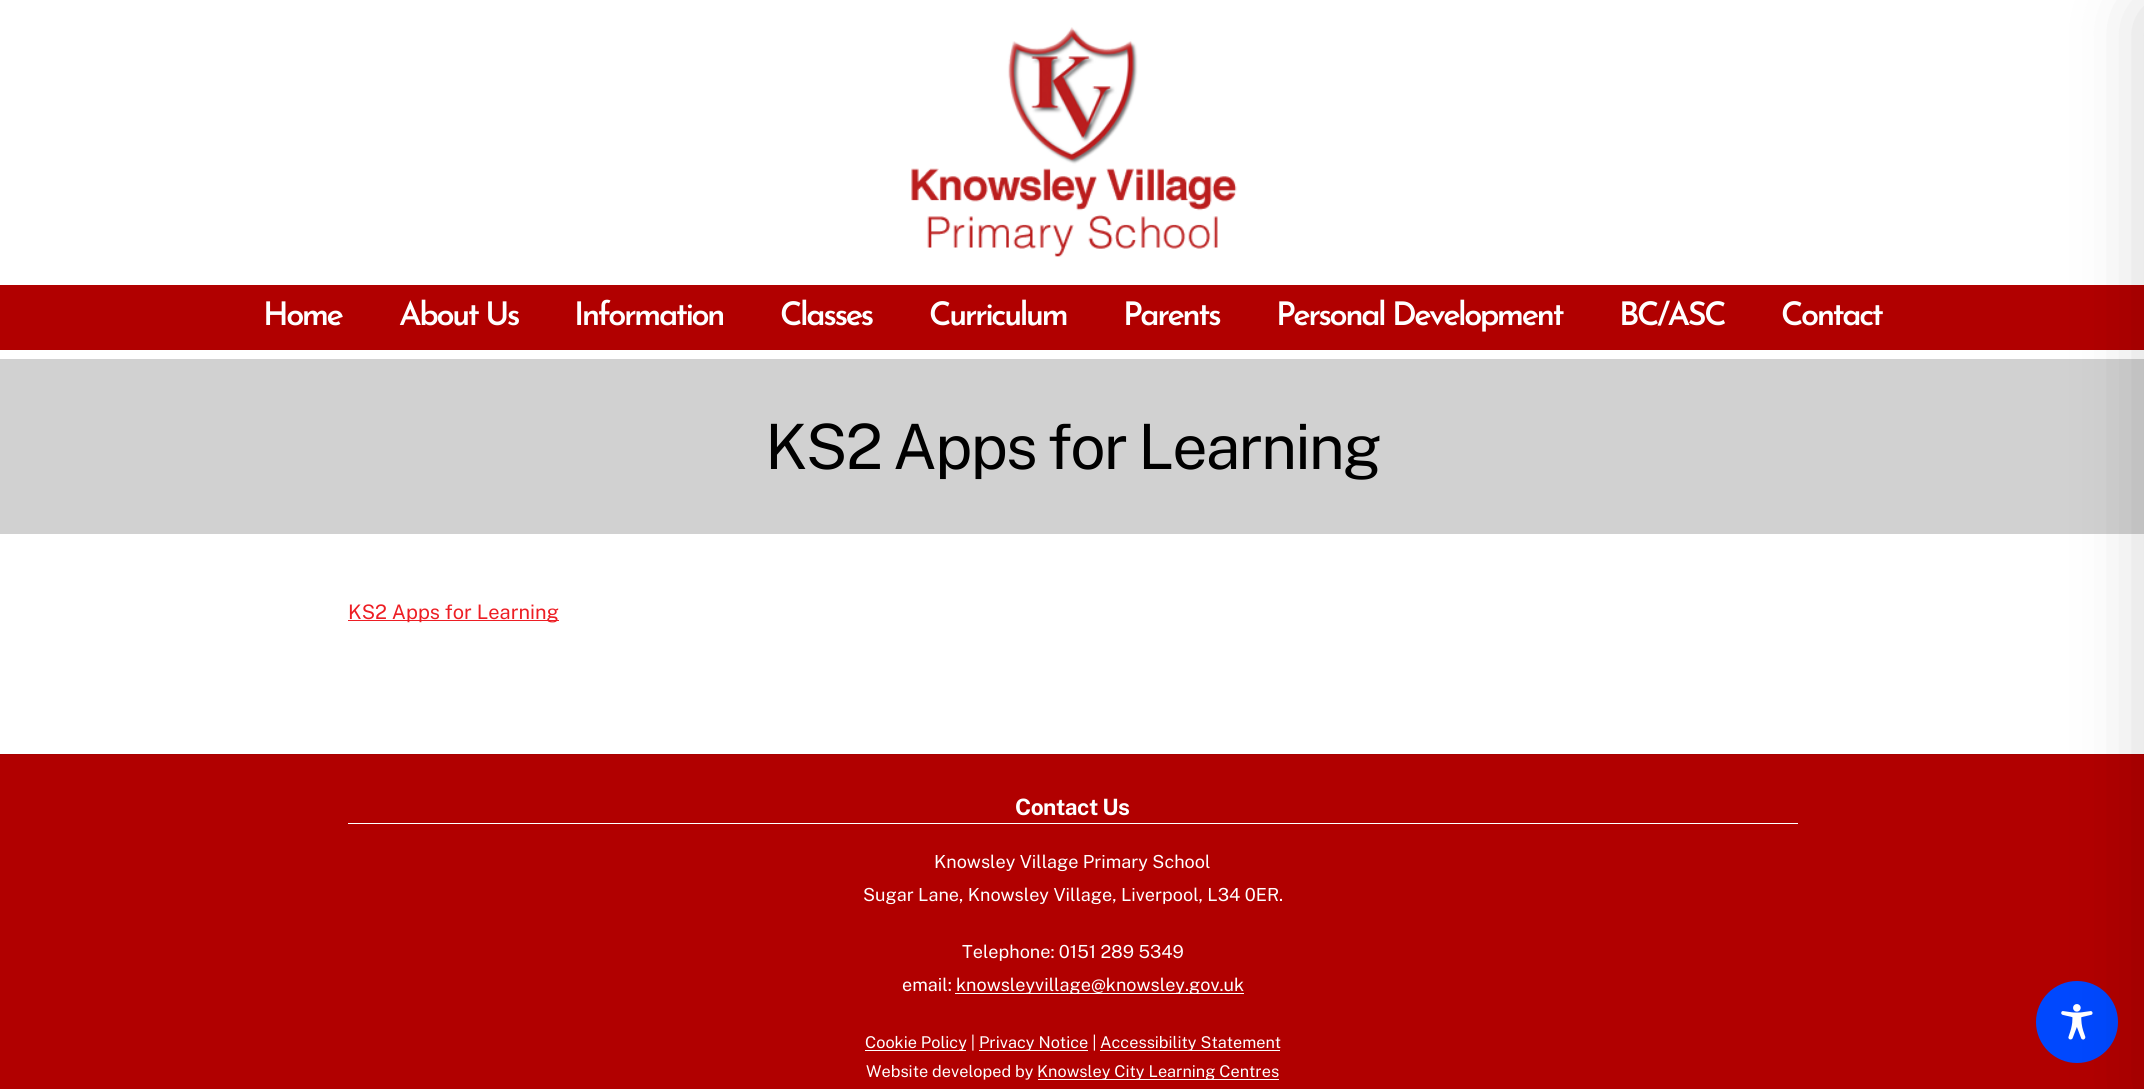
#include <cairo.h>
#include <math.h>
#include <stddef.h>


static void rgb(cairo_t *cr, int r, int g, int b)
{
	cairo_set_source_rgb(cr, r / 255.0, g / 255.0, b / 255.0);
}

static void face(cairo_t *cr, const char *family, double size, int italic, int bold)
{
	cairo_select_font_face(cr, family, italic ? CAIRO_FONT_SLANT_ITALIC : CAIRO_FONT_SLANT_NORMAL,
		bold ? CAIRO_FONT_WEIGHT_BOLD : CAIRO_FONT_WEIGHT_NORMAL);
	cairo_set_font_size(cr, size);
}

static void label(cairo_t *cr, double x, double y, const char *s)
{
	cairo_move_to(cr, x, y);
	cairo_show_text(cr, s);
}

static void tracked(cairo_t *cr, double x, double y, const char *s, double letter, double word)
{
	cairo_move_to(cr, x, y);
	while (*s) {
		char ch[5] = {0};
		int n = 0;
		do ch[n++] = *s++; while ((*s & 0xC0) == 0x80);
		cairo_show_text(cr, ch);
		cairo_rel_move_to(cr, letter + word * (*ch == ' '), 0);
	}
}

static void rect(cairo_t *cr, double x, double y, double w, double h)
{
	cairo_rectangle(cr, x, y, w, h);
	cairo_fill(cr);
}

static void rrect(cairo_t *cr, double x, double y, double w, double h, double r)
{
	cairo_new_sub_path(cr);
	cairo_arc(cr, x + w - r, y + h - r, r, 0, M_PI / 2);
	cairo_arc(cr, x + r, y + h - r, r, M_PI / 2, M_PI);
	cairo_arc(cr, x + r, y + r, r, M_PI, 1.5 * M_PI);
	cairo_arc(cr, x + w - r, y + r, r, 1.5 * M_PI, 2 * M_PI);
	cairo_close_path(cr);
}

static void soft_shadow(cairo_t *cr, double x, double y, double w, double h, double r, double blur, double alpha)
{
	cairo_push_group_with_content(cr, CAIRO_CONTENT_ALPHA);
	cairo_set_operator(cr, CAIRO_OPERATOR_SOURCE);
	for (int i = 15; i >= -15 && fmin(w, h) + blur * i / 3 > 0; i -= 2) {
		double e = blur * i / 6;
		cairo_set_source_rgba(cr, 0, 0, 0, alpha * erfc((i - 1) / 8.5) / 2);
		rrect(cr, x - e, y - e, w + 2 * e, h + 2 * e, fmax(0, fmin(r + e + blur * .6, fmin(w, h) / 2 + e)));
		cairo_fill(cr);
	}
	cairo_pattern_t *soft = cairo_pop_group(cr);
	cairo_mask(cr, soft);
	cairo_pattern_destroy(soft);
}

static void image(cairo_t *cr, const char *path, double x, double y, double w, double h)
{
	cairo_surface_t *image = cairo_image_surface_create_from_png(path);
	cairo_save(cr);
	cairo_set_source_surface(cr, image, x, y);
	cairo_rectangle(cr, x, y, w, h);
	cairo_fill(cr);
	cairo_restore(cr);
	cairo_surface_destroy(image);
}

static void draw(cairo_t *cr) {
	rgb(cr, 255, 255, 255);
	cairo_paint(cr);
	image(cr, "image0.png", 911, 27, 326, 230);
	rgb(cr, 177, 0, 0);
	rect(cr, 0, 285, 2144, 65);
	face(cr, "Josefin Sans SemiBold", 32.5, 0, 0);
	rgb(cr, 255, 255, 255);
	tracked(cr, 263, 325, "Home", -2.5, 0);
	tracked(cr, 399, 325, "About Us", -2.5, 0);
	tracked(cr, 574, 325, "Information", -2.5, 0);
	tracked(cr, 780, 325, "Classes", -2.5, 0);
	tracked(cr, 929, 325, "Curriculum", -2.5, 0);
	tracked(cr, 1123, 325, "Parents", -2.5, 0);
	tracked(cr, 1276, 325, "Personal Development", -2.5, 0);
	tracked(cr, 1619, 325, "BC/ASC", -2.5, 0);
	tracked(cr, 1781, 325, "Contact", -2.5, 0);
	rgb(cr, 209, 209, 209);
	rect(cr, 0, 359, 2144, 175);
	face(cr, "Public Sans", 62.5, 0, 0);
	rgb(cr, 0, 0, 0);
	tracked(cr, 765, 469, "KS2 Apps for Learning", -1.9, -1.5);
	rgb(cr, 237, 30, 36);
	rect(cr, 348, 620, 211, 1);
	face(cr, "Public Sans", 20, 0, 0);
	label(cr, 348, 619, "KS2 Apps for Learning");
	rgb(cr, 177, 0, 0);
	rect(cr, 0, 755, 2144, 334);
	rgb(cr, 168, 0, 0);
	rect(cr, 0, 754, 2144, 1);
	rgb(cr, 255, 255, 255);
	rect(cr, 348, 823, 1450, 1);
	face(cr, "Public Sans", 22.5, 0, 1);
	tracked(cr, 1015, 815, "Contact Us", -0.5, 0);
	face(cr, "Public Sans", 18, 0, 0);
	label(cr, 934, 868, "Knowsley Village Primary School");
	label(cr, 863, 901, "Sugar Lane, Knowsley Village, Liverpool, L34 0ER.");
	label(cr, 962, 958, "Telephone: 0151 289 5349");
	label(cr, 902, 991, "email:");
	rect(cr, 955, 993, 289, 1);
	label(cr, 956, 991, "knowsleyvillage@knowsley.gov.uk");
	rect(cr, 865, 1050, 101, 1);
	face(cr, "Public Sans", 16.25, 0, 0);
	label(cr, 865, 1048, "Cookie Policy |");
	rect(cr, 979, 1050, 109, 1);
	label(cr, 979, 1048, "Privacy Notice |");
	rect(cr, 1100, 1050, 180, 1);
	label(cr, 1100, 1048, "Accessibility Statement");
	label(cr, 866, 1077, "Website developed by");
	rect(cr, 1038, 1079, 241, 1);
	label(cr, 1037, 1077, "Knowsley City Learning Centres");
	rgb(cr, 0, 72, 254);
	cairo_new_path(cr);
	cairo_arc(cr, 2077, 1022, 41, 0, 2 * M_PI);
	cairo_fill(cr);
	image(cr, "image1.png", 2061, 1004, 32, 36);
	rgb(cr, 0, 0, 0);
	soft_shadow(cr, 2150, 13, 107, 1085, 0, 37.5, 0.2);
}

int main(void) {
	cairo_surface_t *surface = cairo_image_surface_create(CAIRO_FORMAT_RGB24, 2144, 1089);
	cairo_t *cr = cairo_create(surface);
	cairo_font_options_t *options = cairo_font_options_create();
	cairo_font_options_set_hint_metrics(options, CAIRO_HINT_METRICS_OFF);
	cairo_font_options_set_hint_style(options, CAIRO_HINT_STYLE_NONE);
	cairo_set_font_options(cr, options);
	cairo_set_miter_limit(cr, 4);
	draw(cr);
	cairo_surface_write_to_png(surface, "render.png");
	cairo_font_options_destroy(options);
	cairo_destroy(cr);
	cairo_surface_destroy(surface);
	return 0;
}
